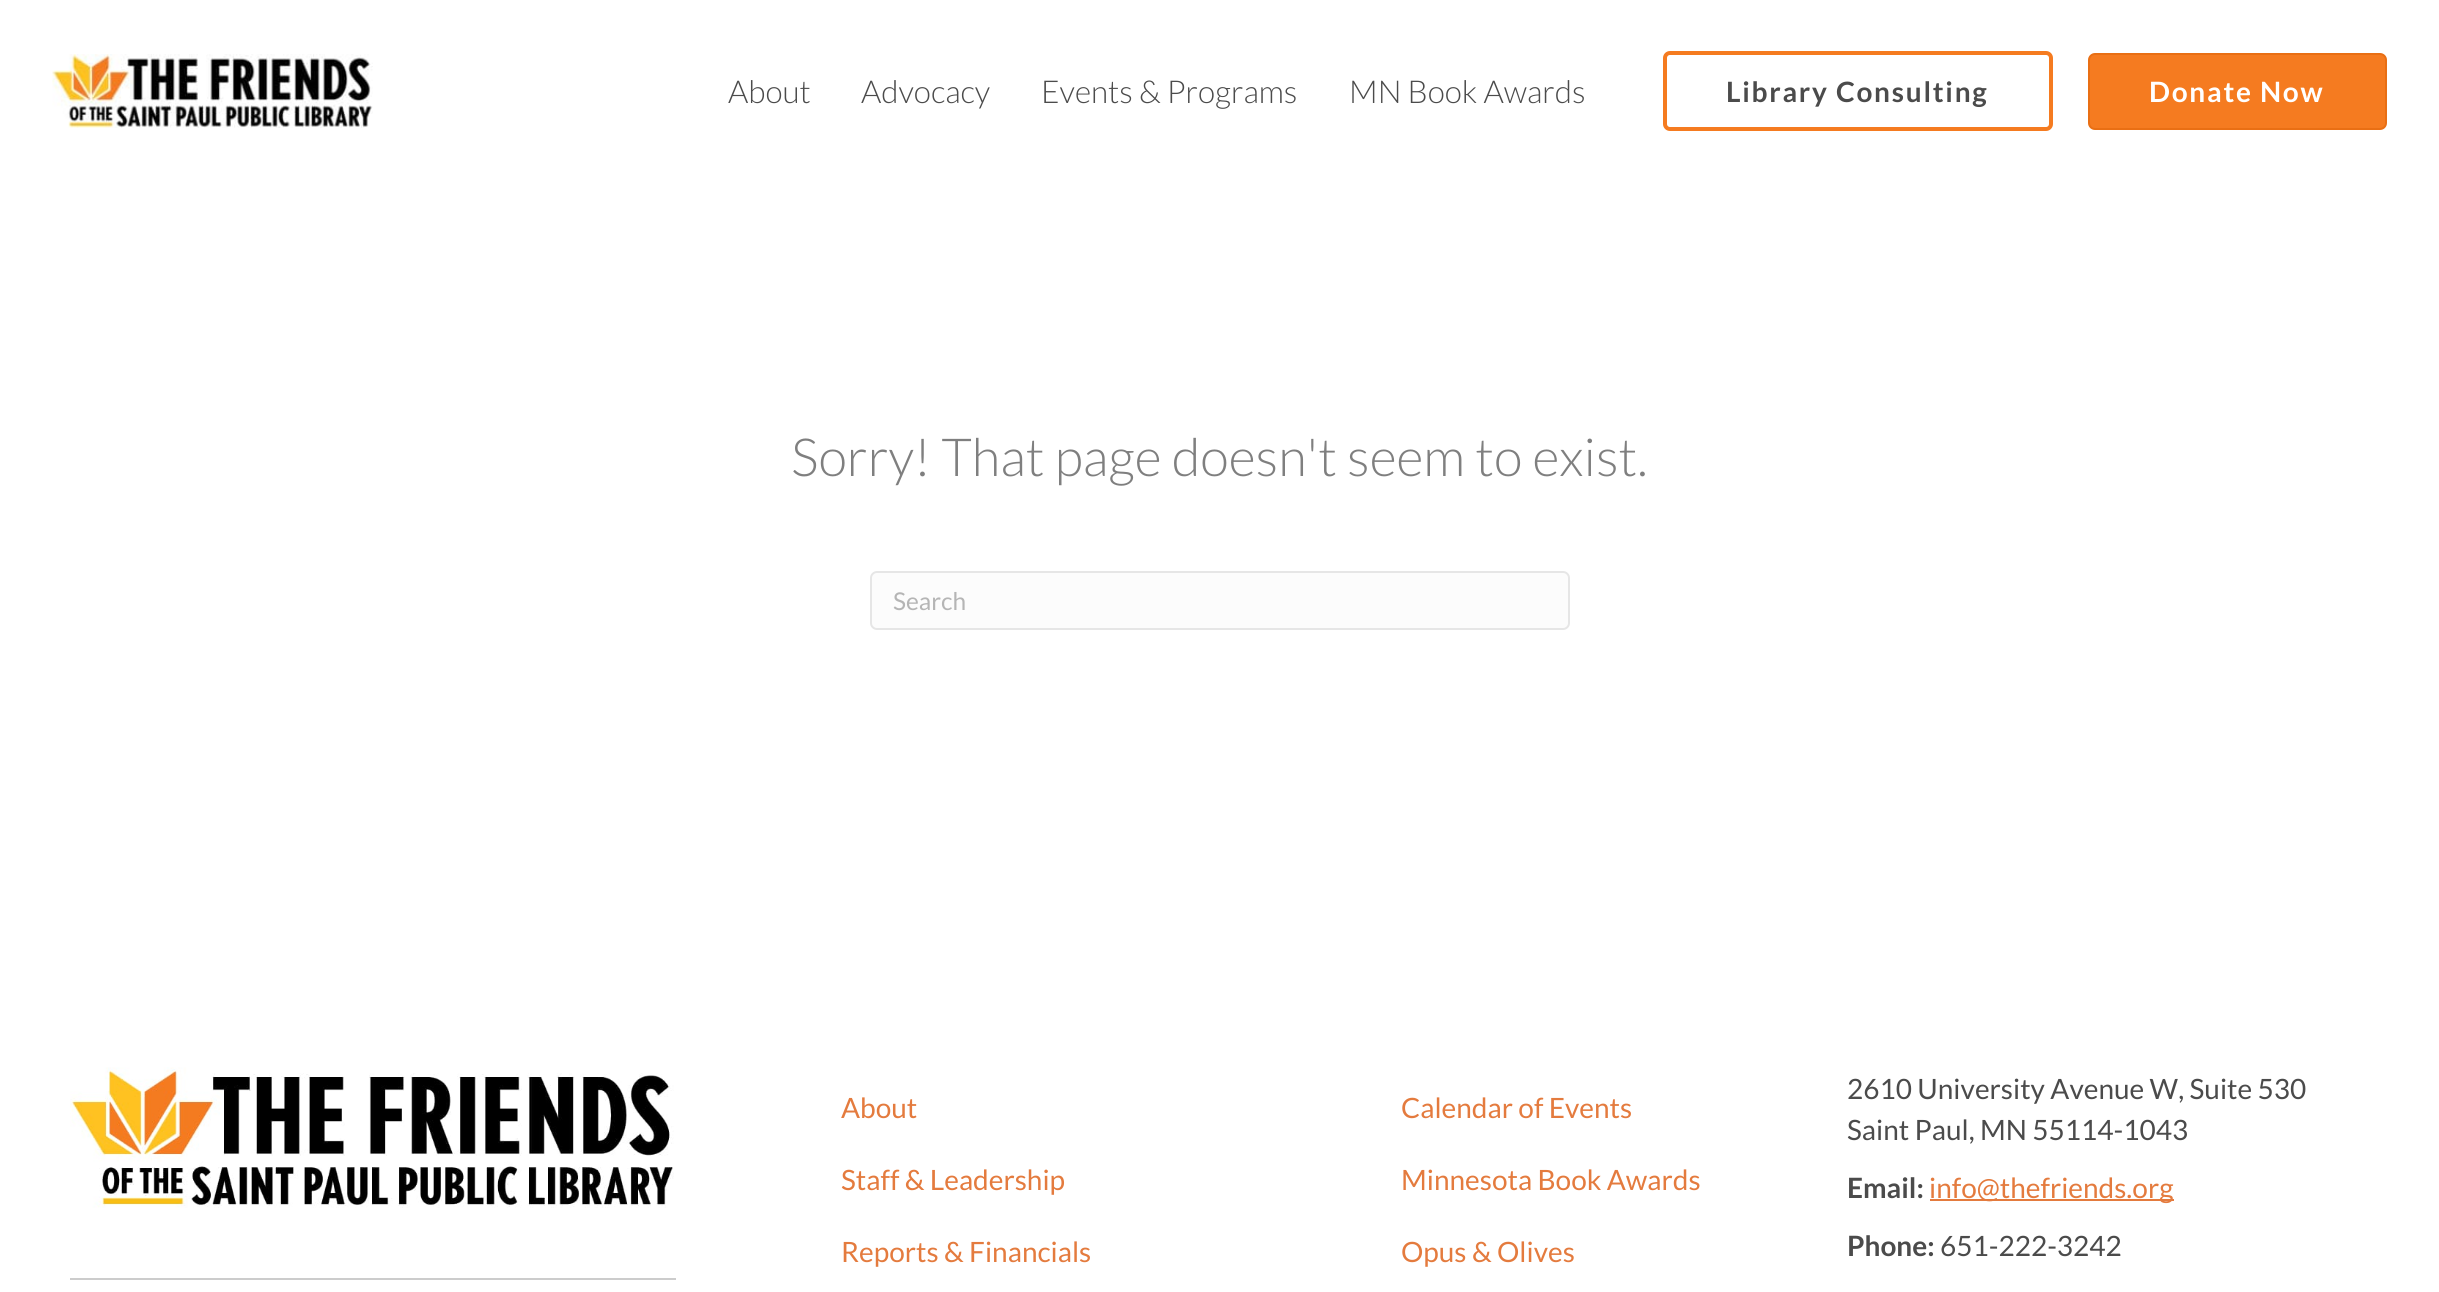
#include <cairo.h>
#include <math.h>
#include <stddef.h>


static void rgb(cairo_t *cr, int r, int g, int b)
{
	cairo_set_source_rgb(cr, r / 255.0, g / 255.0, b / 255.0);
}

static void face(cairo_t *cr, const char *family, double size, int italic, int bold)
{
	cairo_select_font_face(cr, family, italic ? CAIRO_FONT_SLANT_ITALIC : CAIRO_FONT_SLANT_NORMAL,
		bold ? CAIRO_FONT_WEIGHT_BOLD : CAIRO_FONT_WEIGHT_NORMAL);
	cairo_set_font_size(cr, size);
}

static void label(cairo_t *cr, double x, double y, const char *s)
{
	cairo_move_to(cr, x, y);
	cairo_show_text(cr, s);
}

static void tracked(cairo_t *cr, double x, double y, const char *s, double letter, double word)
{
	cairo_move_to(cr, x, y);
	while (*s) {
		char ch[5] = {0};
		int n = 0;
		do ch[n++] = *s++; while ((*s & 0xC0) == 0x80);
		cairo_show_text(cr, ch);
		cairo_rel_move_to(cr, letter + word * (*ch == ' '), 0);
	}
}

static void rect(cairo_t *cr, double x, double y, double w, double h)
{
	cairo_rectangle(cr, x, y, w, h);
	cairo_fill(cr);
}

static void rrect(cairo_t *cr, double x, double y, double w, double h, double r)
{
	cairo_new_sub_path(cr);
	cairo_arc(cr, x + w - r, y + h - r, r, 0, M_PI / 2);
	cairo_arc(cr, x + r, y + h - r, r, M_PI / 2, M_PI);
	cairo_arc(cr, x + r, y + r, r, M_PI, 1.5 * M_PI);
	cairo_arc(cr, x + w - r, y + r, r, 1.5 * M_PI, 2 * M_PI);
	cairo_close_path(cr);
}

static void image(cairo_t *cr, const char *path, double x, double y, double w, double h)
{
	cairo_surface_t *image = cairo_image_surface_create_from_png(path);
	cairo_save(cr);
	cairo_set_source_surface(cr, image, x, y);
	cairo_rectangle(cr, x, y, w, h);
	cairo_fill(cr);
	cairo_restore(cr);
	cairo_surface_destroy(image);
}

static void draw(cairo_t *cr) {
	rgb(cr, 255, 255, 255);
	cairo_paint(cr);
	image(cr, "image0.png", 52, 54, 321, 74);
	face(cr, "Lato Light", 31.5, 0, 0);
	rgb(cr, 75, 75, 75);
	label(cr, 728, 103, "About");
	label(cr, 861, 103, "Advocacy");
	label(cr, 1041, 103, "Events & Programs");
	label(cr, 1349, 103, "MN Book Awards");
	rrect(cr, 1665, 53, 386, 76, 5);
	rgb(cr, 245, 123, 32);
	cairo_set_line_width(cr, 4);
	cairo_stroke(cr);
	face(cr, "Lato", 28, 0, 1);
	rgb(cr, 75, 75, 75);
	tracked(cr, 1726, 102, "Library Consulting", 1.75, 0);
	rgb(cr, 245, 123, 32);
	rrect(cr, 2089, 54, 297, 75, 6);
	cairo_fill_preserve(cr);
	rgb(cr, 233, 111, 20);
	cairo_set_line_width(cr, 2);
	cairo_stroke(cr);
	rgb(cr, 255, 255, 255);
	tracked(cr, 2149, 102, "Donate Now", 1.75, 0);
	face(cr, "Lato Light", 52.5, 0, 0);
	rgb(cr, 127, 127, 127);
	label(cr, 791, 476, "Sorry! That page doesn't seem to exist.");
	rgb(cr, 252, 252, 252);
	rrect(cr, 871, 572, 698, 57, 6);
	cairo_fill_preserve(cr);
	rgb(cr, 230, 230, 230);
	cairo_stroke(cr);
	face(cr, "Lato", 24.5, 0, 0);
	rgb(cr, 181, 181, 181);
	label(cr, 893, 610, "Search");
	image(cr, "image1.png", 70, 1067, 604, 141);
	rgb(cr, 204, 204, 204);
	rect(cr, 70, 1278, 606, 2);
	face(cr, "Lato", 28, 0, 0);
	rgb(cr, 228, 123, 62);
	label(cr, 841, 1118, "About");
	label(cr, 841, 1190, "Staff & Leadership");
	label(cr, 841, 1262, "Reports & Financials");
	label(cr, 1401, 1118, "Calendar of Events");
	label(cr, 1401, 1190, "Minnesota Book Awards");
	label(cr, 1401, 1262, "Opus & Olives");
	rgb(cr, 75, 75, 75);
	label(cr, 1847, 1099, "2610 University Avenue W, Suite 530");
	label(cr, 1847, 1140, "Saint Paul, MN 55114-1043");
	face(cr, "Lato", 28, 0, 1);
	label(cr, 1847, 1198, "Email:");
	rgb(cr, 228, 123, 62);
	rect(cr, 1930, 1199, 244, 2);
	face(cr, "Lato", 28, 0, 0);
	label(cr, 1929, 1198, "info@thefriends.org");
	face(cr, "Lato", 28, 0, 1);
	rgb(cr, 75, 75, 75);
	label(cr, 1847, 1256, "Phone:");
	face(cr, "Lato", 28, 0, 0);
	label(cr, 1940, 1256, "651-222-3242");
}

int main(void) {
	cairo_surface_t *surface = cairo_image_surface_create(CAIRO_FORMAT_RGB24, 2439, 1292);
	cairo_t *cr = cairo_create(surface);
	cairo_font_options_t *options = cairo_font_options_create();
	cairo_font_options_set_hint_metrics(options, CAIRO_HINT_METRICS_OFF);
	cairo_font_options_set_hint_style(options, CAIRO_HINT_STYLE_NONE);
	cairo_set_font_options(cr, options);
	cairo_set_miter_limit(cr, 4);
	draw(cr);
	cairo_surface_write_to_png(surface, "render.png");
	cairo_font_options_destroy(options);
	cairo_destroy(cr);
	cairo_surface_destroy(surface);
	return 0;
}
